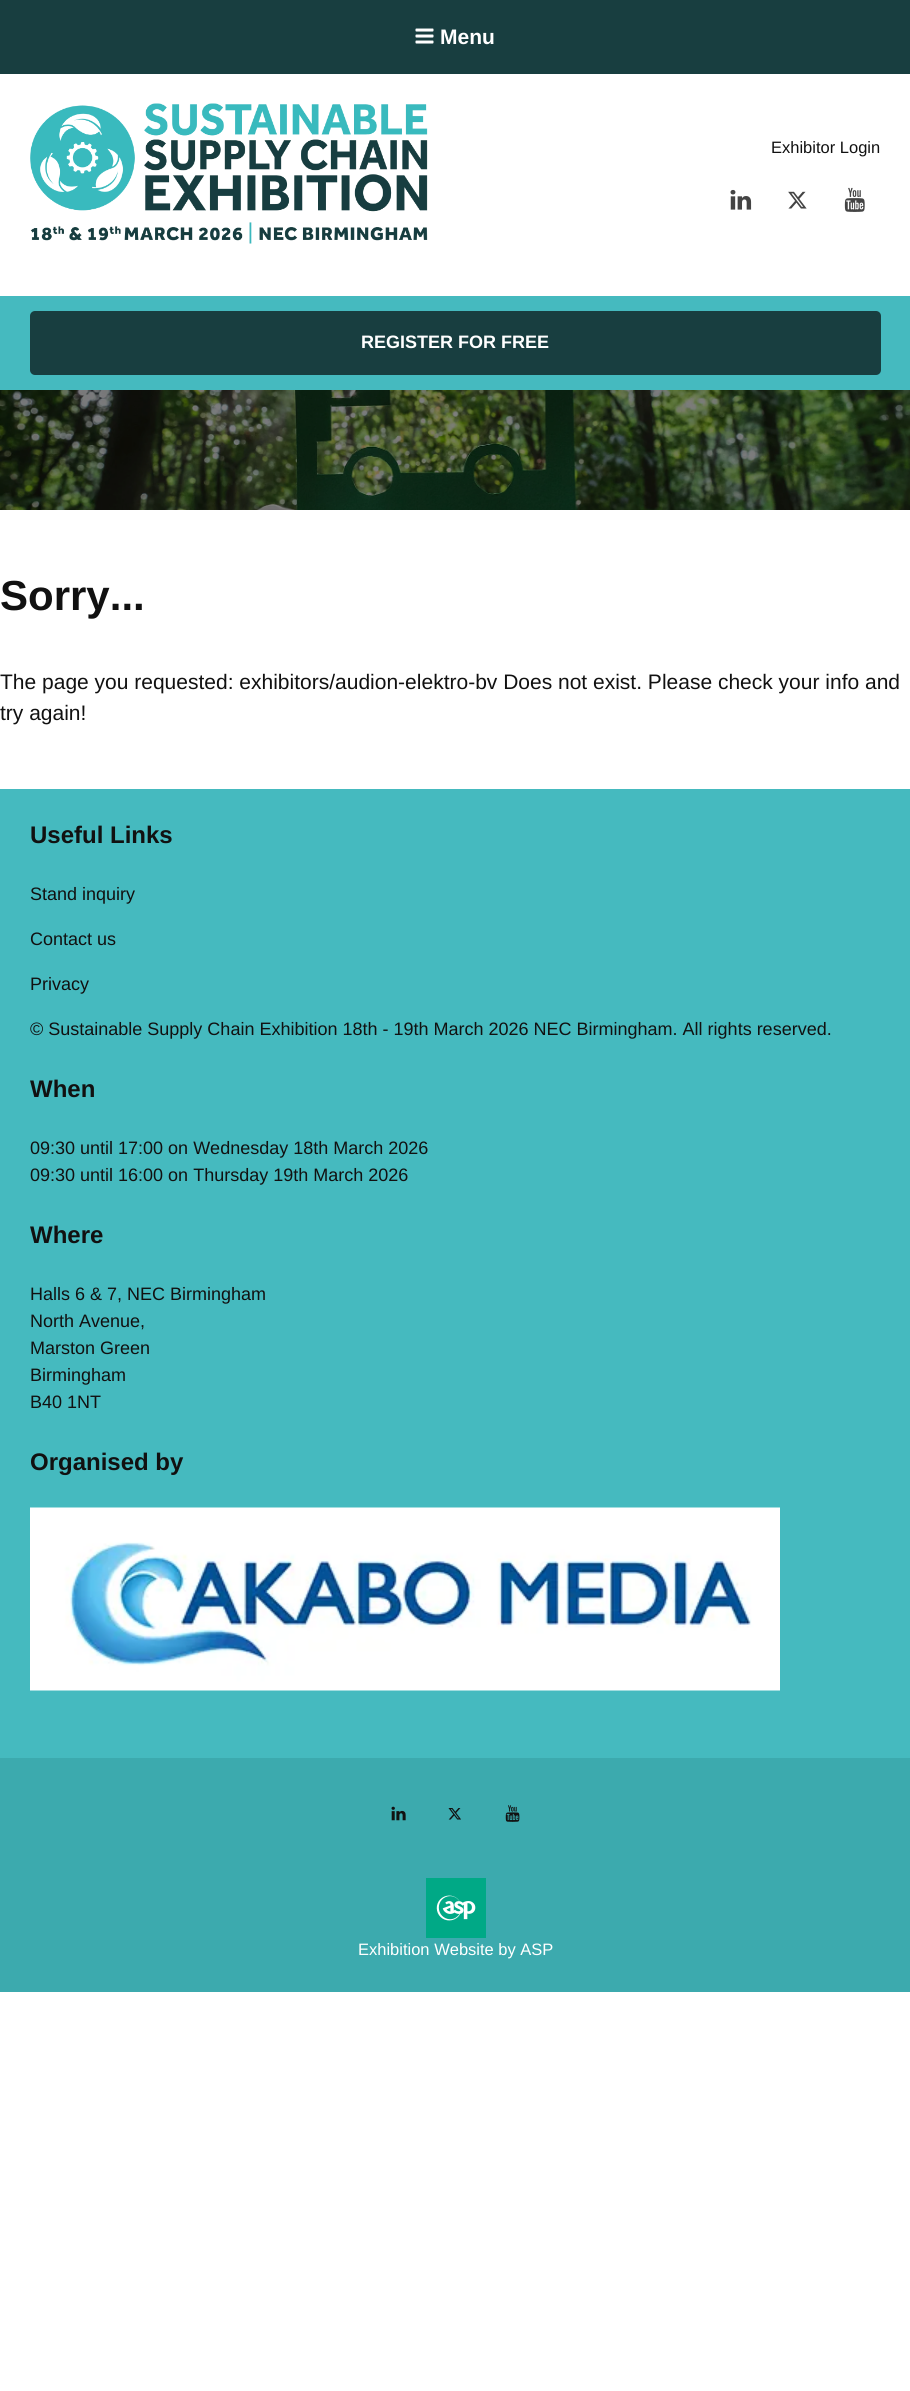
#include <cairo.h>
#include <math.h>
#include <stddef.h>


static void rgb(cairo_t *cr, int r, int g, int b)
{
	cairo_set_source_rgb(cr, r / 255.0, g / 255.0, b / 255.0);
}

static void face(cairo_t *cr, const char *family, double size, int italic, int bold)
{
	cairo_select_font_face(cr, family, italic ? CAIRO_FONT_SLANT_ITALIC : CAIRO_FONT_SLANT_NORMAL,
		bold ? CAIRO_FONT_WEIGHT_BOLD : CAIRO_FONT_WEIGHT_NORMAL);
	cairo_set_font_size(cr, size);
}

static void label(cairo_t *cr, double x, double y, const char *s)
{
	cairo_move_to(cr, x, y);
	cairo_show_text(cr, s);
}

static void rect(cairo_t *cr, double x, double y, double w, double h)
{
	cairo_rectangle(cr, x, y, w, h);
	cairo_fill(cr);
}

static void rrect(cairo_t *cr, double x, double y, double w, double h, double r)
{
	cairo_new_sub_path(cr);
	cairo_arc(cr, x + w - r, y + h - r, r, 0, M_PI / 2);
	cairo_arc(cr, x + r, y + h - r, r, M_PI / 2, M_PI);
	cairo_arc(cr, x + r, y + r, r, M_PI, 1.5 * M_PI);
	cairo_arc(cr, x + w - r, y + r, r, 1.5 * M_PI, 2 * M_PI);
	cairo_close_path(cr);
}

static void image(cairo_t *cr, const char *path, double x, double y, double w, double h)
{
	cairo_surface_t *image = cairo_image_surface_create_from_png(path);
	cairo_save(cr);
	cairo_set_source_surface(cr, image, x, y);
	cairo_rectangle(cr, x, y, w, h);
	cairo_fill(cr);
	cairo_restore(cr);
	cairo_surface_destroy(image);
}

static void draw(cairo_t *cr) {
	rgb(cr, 255, 255, 255);
	cairo_paint(cr);
	rgb(cr, 24, 62, 64);
	rect(cr, 0, 0, 910, 74);
	image(cr, "image0.png", 415, 28, 19, 16);
	face(cr, "Liberation Sans", 21, 0, 1);
	rgb(cr, 255, 255, 255);
	label(cr, 440, 44, "Menu");
	image(cr, "image1.png", 30, 103, 398, 141);
	face(cr, "Liberation Sans", 16.5, 0, 0);
	rgb(cr, 17, 17, 17);
	label(cr, 771, 153, "Exhibitor Login");
	image(cr, "image2.png", 730, 189, 22, 21);
	image(cr, "image3.png", 788, 191, 19, 18);
	image(cr, "image4.png", 844, 187, 21, 25);
	rgb(cr, 69, 186, 191);
	rect(cr, 0, 296, 910, 94);
	rgb(cr, 24, 62, 64);
	rrect(cr, 30, 311, 851, 64, 5);
	cairo_fill(cr);
	face(cr, "Liberation Sans", 18, 0, 1);
	rgb(cr, 255, 255, 255);
	label(cr, 361, 348, "REGISTER FOR FREE");
	image(cr, "image5.png", 0, 390, 910, 120);
	face(cr, "Liberation Sans", 42, 0, 1);
	rgb(cr, 17, 17, 17);
	label(cr, 0, 610, "Sorry...");
	face(cr, "Liberation Sans", 21, 0, 0);
	label(cr, 0, 689, "The page you requested: exhibitors/audion-elektro-bv Does not exist. Please check your info and");
	label(cr, 0, 720, "try again!");
	rgb(cr, 69, 186, 191);
	rect(cr, 0, 789, 910, 969);
	face(cr, "Liberation Sans", 24, 0, 1);
	rgb(cr, 17, 17, 17);
	label(cr, 30, 843, "Useful Links");
	face(cr, "Liberation Sans", 18, 0, 0);
	label(cr, 30, 900, "Stand inquiry");
	label(cr, 30, 945, "Contact us");
	label(cr, 30, 990, "Privacy");
	label(cr, 30, 1035, "© Sustainable Supply Chain Exhibition 18th - 19th March 2026 NEC Birmingham. All rights reserved.");
	face(cr, "Liberation Sans", 24, 0, 1);
	label(cr, 30, 1097, "When");
	face(cr, "Liberation Sans", 18, 0, 0);
	label(cr, 30, 1154, "09:30 until 17:00 on Wednesday 18th March 2026");
	label(cr, 30, 1181, "09:30 until 16:00 on Thursday 19th March 2026");
	face(cr, "Liberation Sans", 24, 0, 1);
	label(cr, 30, 1243, "Where");
	face(cr, "Liberation Sans", 18, 0, 0);
	label(cr, 30, 1300, "Halls 6 & 7, NEC Birmingham");
	label(cr, 30, 1327, "North Avenue,");
	label(cr, 30, 1354, "Marston Green");
	label(cr, 30, 1381, "Birmingham");
	label(cr, 30, 1408, "B40 1NT");
	face(cr, "Liberation Sans", 24, 0, 1);
	label(cr, 30, 1470, "Organised by");
	image(cr, "image6.png", 30, 1507, 750, 184);
	rgb(cr, 60, 170, 174);
	rect(cr, 0, 1758, 910, 234);
	image(cr, "image7.png", 391, 1806, 15, 15);
	image(cr, "image8.png", 448, 1808, 13, 12);
	image(cr, "image9.png", 505, 1805, 15, 17);
	image(cr, "image10.png", 426, 1878, 60, 60);
	face(cr, "Liberation Sans", 16.5, 0, 0);
	rgb(cr, 255, 255, 255);
	label(cr, 358, 1955, "Exhibition Website by ASP");
}

int main(void) {
	cairo_surface_t *surface = cairo_image_surface_create(CAIRO_FORMAT_RGB24, 910, 2391);
	cairo_t *cr = cairo_create(surface);
	cairo_font_options_t *options = cairo_font_options_create();
	cairo_font_options_set_hint_metrics(options, CAIRO_HINT_METRICS_OFF);
	cairo_font_options_set_hint_style(options, CAIRO_HINT_STYLE_NONE);
	cairo_set_font_options(cr, options);
	cairo_set_miter_limit(cr, 4);
	draw(cr);
	cairo_surface_write_to_png(surface, "render.png");
	cairo_font_options_destroy(options);
	cairo_destroy(cr);
	cairo_surface_destroy(surface);
	return 0;
}
